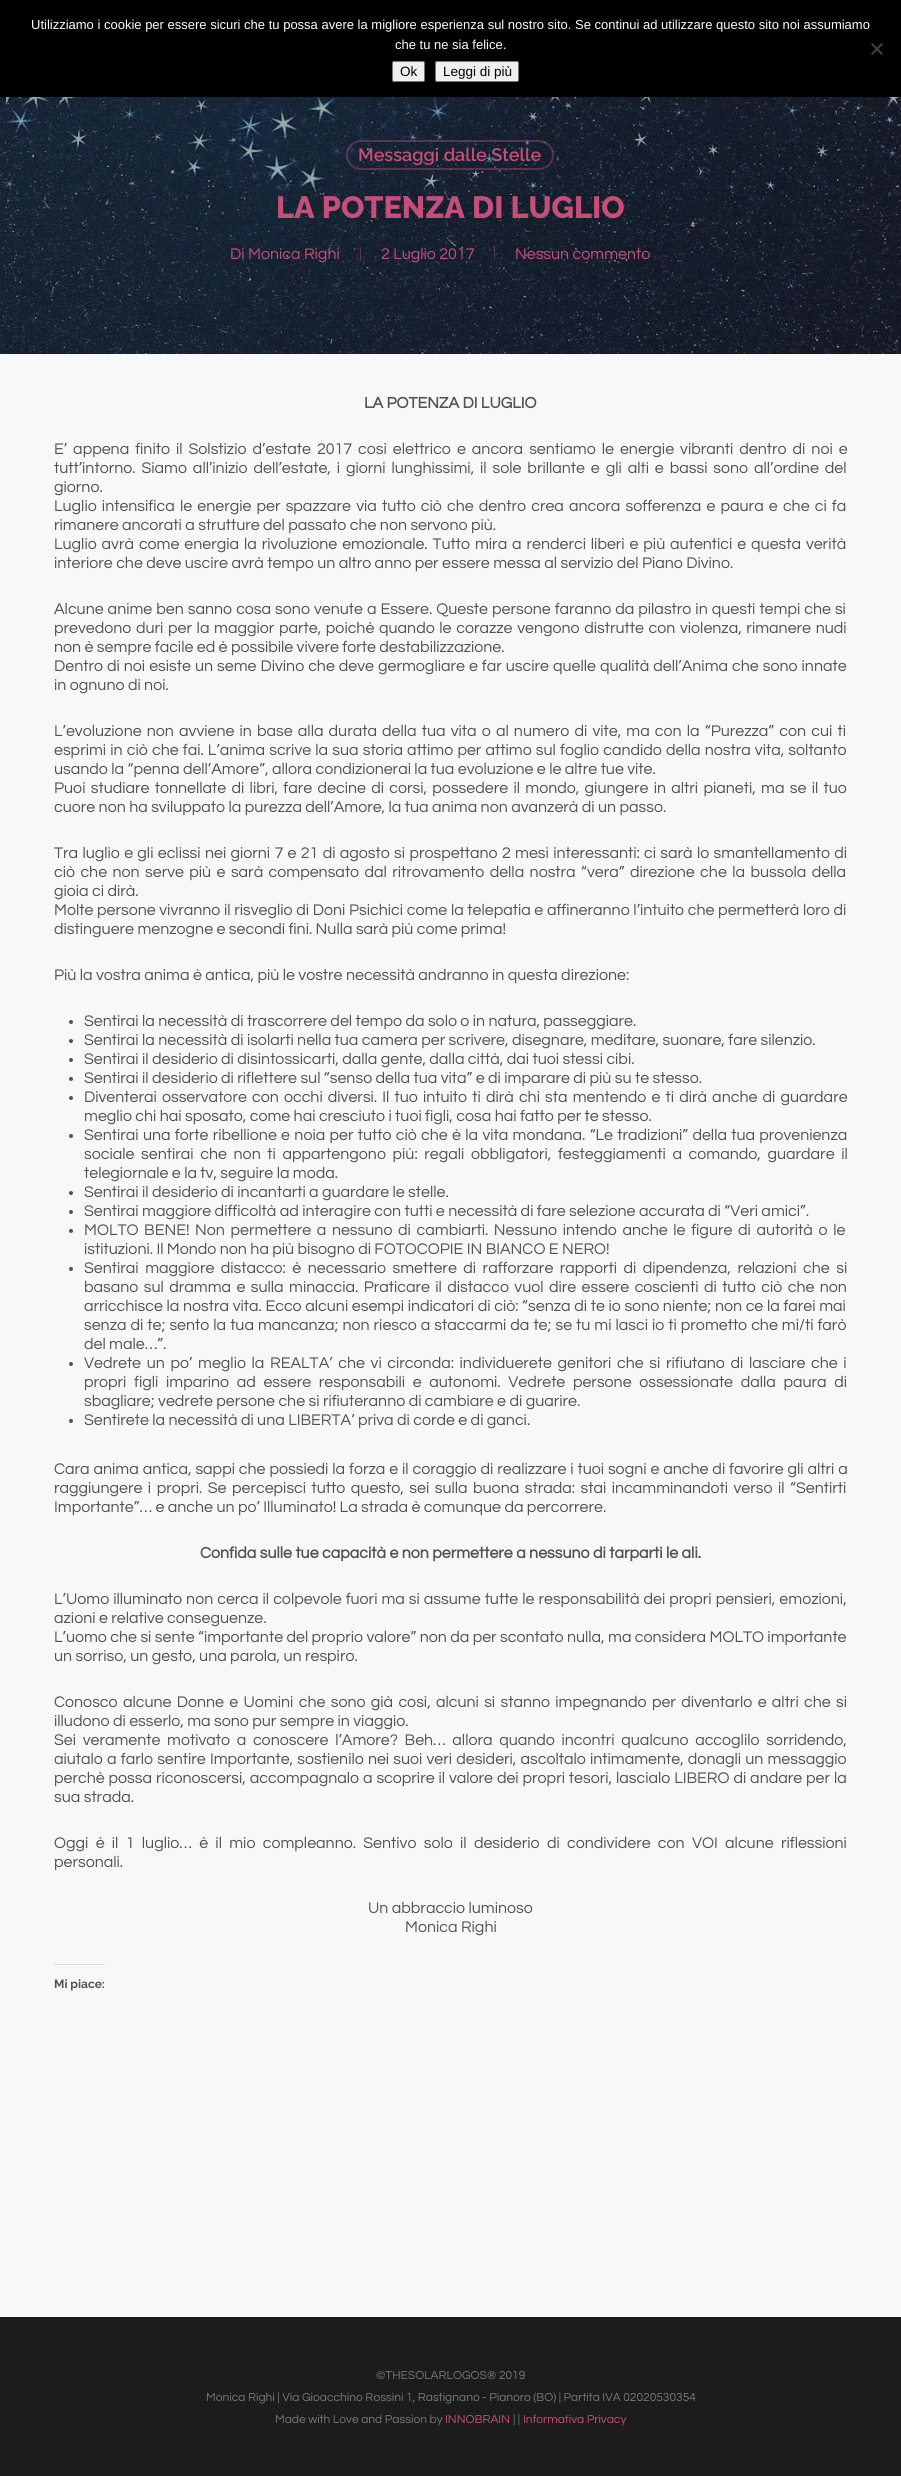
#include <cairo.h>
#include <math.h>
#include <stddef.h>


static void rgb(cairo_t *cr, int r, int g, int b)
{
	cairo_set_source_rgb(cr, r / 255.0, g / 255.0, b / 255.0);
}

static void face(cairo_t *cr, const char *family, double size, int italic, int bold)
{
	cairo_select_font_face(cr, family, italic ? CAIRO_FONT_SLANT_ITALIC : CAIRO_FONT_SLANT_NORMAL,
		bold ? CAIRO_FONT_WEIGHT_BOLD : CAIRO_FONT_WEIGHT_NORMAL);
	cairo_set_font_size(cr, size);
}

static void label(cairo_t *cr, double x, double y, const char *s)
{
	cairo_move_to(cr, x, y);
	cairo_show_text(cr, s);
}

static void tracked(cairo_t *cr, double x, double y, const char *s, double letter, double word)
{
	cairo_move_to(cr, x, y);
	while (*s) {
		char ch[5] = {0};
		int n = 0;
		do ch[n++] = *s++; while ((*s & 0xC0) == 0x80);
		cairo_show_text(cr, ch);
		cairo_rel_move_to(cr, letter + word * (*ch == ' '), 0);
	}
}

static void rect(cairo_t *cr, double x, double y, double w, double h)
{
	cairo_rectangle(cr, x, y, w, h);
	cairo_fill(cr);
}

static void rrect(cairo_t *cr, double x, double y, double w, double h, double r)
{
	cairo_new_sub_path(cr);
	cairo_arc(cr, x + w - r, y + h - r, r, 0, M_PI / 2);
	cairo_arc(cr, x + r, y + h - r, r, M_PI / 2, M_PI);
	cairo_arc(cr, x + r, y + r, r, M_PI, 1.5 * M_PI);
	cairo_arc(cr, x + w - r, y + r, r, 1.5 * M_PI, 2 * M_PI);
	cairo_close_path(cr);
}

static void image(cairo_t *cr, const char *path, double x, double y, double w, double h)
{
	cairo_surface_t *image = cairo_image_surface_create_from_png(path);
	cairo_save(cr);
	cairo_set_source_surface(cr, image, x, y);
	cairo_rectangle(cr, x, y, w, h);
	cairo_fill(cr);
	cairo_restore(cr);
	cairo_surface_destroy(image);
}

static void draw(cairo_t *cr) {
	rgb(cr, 28, 28, 28);
	cairo_paint(cr);
	rgb(cr, 0, 0, 0);
	rect(cr, 0, 0, 901, 97);
	face(cr, "Liberation Sans", 13, 0, 0);
	rgb(cr, 255, 255, 255);
	label(cr, 31, 29, "Utilizziamo i cookie per essere sicuri che tu possa avere la migliore esperienza sul nostro sito. Se continui ad utilizzare questo sito noi assumiamo");
	label(cr, 395, 49, "che tu ne sia felice.");
	rgb(cr, 64, 64, 64);
	cairo_new_path(cr);
	cairo_move_to(cr, 881.5, 43);
	cairo_line_to(cr, 883, 44.5);
	cairo_line_to(cr, 872.5, 55);
	cairo_line_to(cr, 871, 53.5);
	cairo_close_path(cr);
	cairo_fill(cr);
	cairo_new_path(cr);
	cairo_move_to(cr, 871, 44.5);
	cairo_line_to(cr, 872.5, 43);
	cairo_line_to(cr, 883, 53.5);
	cairo_line_to(cr, 881.5, 55);
	cairo_close_path(cr);
	cairo_fill(cr);
	rgb(cr, 239, 239, 239);
	rrect(cr, 392.5, 61.5, 32, 20, 1.5);
	cairo_fill_preserve(cr);
	rgb(cr, 118, 118, 118);
	cairo_set_line_width(cr, 1);
	cairo_stroke(cr);
	face(cr, "Liberation Sans", 13.5, 0, 0);
	rgb(cr, 0, 0, 0);
	label(cr, 400, 76, "Ok");
	rgb(cr, 239, 239, 239);
	rrect(cr, 435.5, 61.5, 83, 20, 1.5);
	cairo_fill_preserve(cr);
	rgb(cr, 118, 118, 118);
	cairo_stroke(cr);
	rgb(cr, 0, 0, 0);
	label(cr, 443, 76, "Leggi di più");
	image(cr, "image0.png", 0, 97, 901, 257);
	rrect(cr, 347, 141, 206, 28, 14);
	cairo_set_source_rgba(cr, 0.773, 0.31, 0.467, 0.4);
	cairo_set_line_width(cr, 2);
	cairo_stroke(cr);
	face(cr, "Raleway SemiBold", 18, 0, 0);
	rgb(cr, 197, 79, 119);
	label(cr, 358, 161, "Messaggi dalle Stelle");
	face(cr, "Raleway ExtraBold", 30.75, 0, 0);
	label(cr, 276, 218, "LA POTENZA DI LUGLIO");
	face(cr, "Questrial", 16, 0, 0);
	label(cr, 230, 259, "Di");
	label(cr, 248, 259, "Monica Righi");
	cairo_set_source_rgba(cr, 0.773, 0.31, 0.467, 0.4);
	rect(cr, 360, 247, 1, 14);
	rgb(cr, 197, 79, 119);
	label(cr, 381, 259, "2 Luglio 2017");
	cairo_set_source_rgba(cr, 0.773, 0.31, 0.467, 0.4);
	rect(cr, 494, 247, 1, 14);
	rgb(cr, 197, 79, 119);
	label(cr, 515, 259, "Nessun commento");
	rgb(cr, 248, 248, 248);
	rect(cr, 0, 354, 901, 1963);
	face(cr, "Questrial", 16, 0, 1);
	rgb(cr, 83, 83, 83);
	label(cr, 364, 408, "LA POTENZA DI LUGLIO");
	face(cr, "Questrial", 16, 0, 0);
	tracked(cr, 54, 454, "E’ appena finito il Solstizio d’estate 2017 così elettrico e ancora sentiamo le energie vibranti dentro di noi e", 0, 2.6);
	tracked(cr, 54, 473, "tutt’intorno. Siamo all’inizio dell’estate, i giorni lunghissimi, il sole brillante e gli alti e bassi sono all’ordine del", 0, 2.5);
	label(cr, 54, 492, "giorno.");
	tracked(cr, 54, 511, "Luglio intensifica le energie per spazzare via tutto ciò che dentro crea ancora sofferenza e paura e che ci fa", 0, 1.75);
	label(cr, 54, 530, "rimanere ancorati a strutture del passato che non servono più.");
	tracked(cr, 54, 549, "Luglio avrà come energia la rivoluzione emozionale. Tutto mira a renderci liberi e più autentici e questa verità", 0, 1.5);
	label(cr, 54, 568, "interiore che deve uscire avrà tempo un altro anno per essere messa al servizio del Piano Divino.");
	tracked(cr, 54, 614, "Alcune anime ben sanno cosa sono venute a Essere. Queste persone faranno da pilastro in questi tempi che si", 0, 0.6);
	tracked(cr, 54, 633, "prevedono duri per la maggior parte, poichè quando le corazze vengono distrutte con violenza, rimanere nudi", 0, 1.25);
	label(cr, 54, 652, "non è sempre facile ed è possibile vivere forte destabilizzazione.");
	tracked(cr, 54, 671, "Dentro di noi esiste un seme Divino che deve germogliare e far uscire quelle qualità dell’Anima che sono innate", 0, 0.6);
	label(cr, 54, 690, "in ognuno di noi.");
	tracked(cr, 54, 736, "L’evoluzione non avviene in base alla durata della tua vita o al numero di vite, ma con la “Purezza” con cui ti", 0, 1.75);
	tracked(cr, 54, 755, "esprimi in ciò che fai. L’anima scrive la sua storia attimo per attimo sul foglio candido della nostra vita, soltanto", 0, 0.75);
	label(cr, 54, 774, "usando la “penna dell’Amore”, allora condizionerai la tua evoluzione e le altre tue vite.");
	tracked(cr, 54, 793, "Puoi studiare tonnellate di libri, fare decine di corsi, possedere il mondo, giungere in altri pianeti, ma se il tuo", 0, 1.9);
	label(cr, 54, 812, "cuore non ha sviluppato la purezza dell’Amore, la tua anima non avanzerà di un passo.");
	tracked(cr, 54, 858, "Tra luglio e gli eclissi nei giorni 7 e 21 di agosto si prospettano 2 mesi interessanti: ci sarà lo smantellamento di", 0, 0.9);
	tracked(cr, 54, 877, "ciò che non serve più e sarà compensato dal ritrovamento della nostra “vera” direzione che la bussola della", 0, 2);
	label(cr, 54, 896, "gioia ci dirà.");
	tracked(cr, 54, 915, "Molte persone vivranno il risveglio di Doni Psichici come la telepatia e affineranno l’intuito che permetterà loro di", 0, 0.25);
	label(cr, 54, 934, "distinguere menzogne e secondi fini. Nulla sarà più come prima!");
	label(cr, 54, 980, "Più la vostra anima è antica, più le vostre necessità andranno in questa direzione:");
	cairo_new_path(cr);
	cairo_arc(cr, 71, 1022, 2, 0, 2 * M_PI);
	cairo_fill(cr);
	label(cr, 84, 1026, "Sentirai la necessità di trascorrere del tempo da solo o in natura, passeggiare.");
	cairo_new_path(cr);
	cairo_arc(cr, 71, 1041, 2, 0, 2 * M_PI);
	cairo_fill(cr);
	label(cr, 84, 1045, "Sentirai la necessità di isolarti nella tua camera per scrivere, disegnare, meditare, suonare, fare silenzio.");
	cairo_new_path(cr);
	cairo_arc(cr, 71, 1060, 2, 0, 2 * M_PI);
	cairo_fill(cr);
	label(cr, 84, 1064, "Sentirai il desiderio di disintossicarti, dalla gente, dalla città, dai tuoi stessi cibi.");
	cairo_new_path(cr);
	cairo_arc(cr, 71, 1079, 2, 0, 2 * M_PI);
	cairo_fill(cr);
	label(cr, 84, 1083, "Sentirai il desiderio di riflettere sul “senso della tua vita” e di imparare di più su te stesso.");
	cairo_new_path(cr);
	cairo_arc(cr, 71, 1098, 2, 0, 2 * M_PI);
	cairo_fill(cr);
	tracked(cr, 84, 1102, "Diventerai osservatore con occhi diversi. Il tuo intuito ti dirà chi sta mentendo e ti dirà anche di guardare", 0, 1.75);
	label(cr, 84, 1121, "meglio chi hai sposato, come hai cresciuto i tuoi figli, cosa hai fatto per te stesso.");
	cairo_new_path(cr);
	cairo_arc(cr, 71, 1136, 2, 0, 2 * M_PI);
	cairo_fill(cr);
	tracked(cr, 84, 1140, "Sentirai una forte ribellione e noia per tutto ciò che è la vita mondana. “Le tradizioni” della tua provenienza", 0, 0.9);
	tracked(cr, 84, 1159, "sociale sentirai che non ti appartengono più: regali obbligatori, festeggiamenti a comando, guardare il", 0, 3.25);
	label(cr, 84, 1178, "telegiornale e la tv, seguire la moda.");
	cairo_new_path(cr);
	cairo_arc(cr, 71, 1193, 2, 0, 2 * M_PI);
	cairo_fill(cr);
	label(cr, 84, 1197, "Sentirai il desiderio di incantarti a guardare le stelle.");
	cairo_new_path(cr);
	cairo_arc(cr, 71, 1212, 2, 0, 2 * M_PI);
	cairo_fill(cr);
	label(cr, 84, 1216, "Sentirai maggiore difficoltà ad interagire con tutti e necessità di fare selezione accurata di “Veri amici”.");
	cairo_new_path(cr);
	cairo_arc(cr, 71, 1231, 2, 0, 2 * M_PI);
	cairo_fill(cr);
	tracked(cr, 84, 1235, "MOLTO BENE! Non permettere a nessuno di cambiarti. Nessuno intendo anche le figure di autorità o le", 0, 2.25);
	label(cr, 84, 1254, "istituzioni. Il Mondo non ha più bisogno di FOTOCOPIE IN BIANCO E NERO!");
	cairo_new_path(cr);
	cairo_arc(cr, 71, 1269, 2, 0, 2 * M_PI);
	cairo_fill(cr);
	tracked(cr, 84, 1273, "Sentirai maggiore distacco: è necessario smettere di rafforzare rapporti di dipendenza, relazioni che si", 0, 3.1);
	tracked(cr, 84, 1292, "basano sul dramma e sulla minaccia. Praticare il distacco vuol dire essere coscienti di tutto ciò che non", 0, 2);
	tracked(cr, 84, 1311, "arricchisce la nostra vita. Ecco alcuni esempi indicatori di ciò: “senza di te io sono niente; non ce la farei mai", 0, 0.25);
	tracked(cr, 84, 1330, "senza di te; sento la tua mancanza; non riesco a staccarmi da te; se tu mi lasci io ti prometto che mi/ti farò", 0, 0.6);
	label(cr, 84, 1349, "del male…”.");
	cairo_new_path(cr);
	cairo_arc(cr, 71, 1364, 2, 0, 2 * M_PI);
	cairo_fill(cr);
	tracked(cr, 84, 1368, "Vedrete un po’ meglio la REALTA’ che vi circonda: individuerete genitori che si rifiutano di lasciare che i", 0, 2.25);
	tracked(cr, 84, 1387, "propri figli imparino ad essere responsabili e autonomi. Vedrete persone ossessionate dalla paura di", 0, 4.25);
	label(cr, 84, 1406, "sbagliare; vedrete persone che si rifiuteranno di cambiare e di guarire.");
	cairo_new_path(cr);
	cairo_arc(cr, 71, 1421, 2, 0, 2 * M_PI);
	cairo_fill(cr);
	label(cr, 84, 1425, "Sentirete la necessità di una LIBERTA’ priva di corde e di ganci.");
	tracked(cr, 54, 1474, "Cara anima antica, sappi che possiedi la forza e il coraggio di realizzare i tuoi sogni e anche di favorire gli altri a", 0, 0.5);
	tracked(cr, 54, 1493, "raggiungere i propri. Se percepisci tutto questo, sei sulla buona strada: stai incamminandoti verso il “Sentirti", 0, 2.1);
	label(cr, 54, 1512, "Importante”… e anche un po’ Illuminato! La strada è comunque da percorrere.");
	face(cr, "Questrial", 16, 0, 1);
	label(cr, 200, 1558, "Confida sulle tue capacità e non permettere a nessuno di tarparti le ali.");
	face(cr, "Questrial", 16, 0, 0);
	tracked(cr, 54, 1604, "L’Uomo illuminato non cerca il colpevole fuori ma si assume tutte le responsabilità dei propri pensieri, emozioni,", 0, 0.6);
	label(cr, 54, 1623, "azioni e relative conseguenze.");
	label(cr, 54, 1642, "L’uomo che si sente “importante del proprio valore” non da per scontato nulla, ma considera MOLTO importante");
	label(cr, 54, 1661, "un sorriso, un gesto, una parola, un respiro.");
	tracked(cr, 54, 1707, "Conosco alcune Donne e Uomini che sono già così, alcuni si stanno impegnando per diventarlo e altri che si", 0, 1.9);
	label(cr, 54, 1726, "illudono di esserlo, ma sono pur sempre in viaggio.");
	tracked(cr, 54, 1745, "Sei veramente motivato a conoscere l’Amore? Beh… allora quando incontri qualcuno accoglilo sorridendo,", 0, 3.25);
	tracked(cr, 54, 1764, "aiutalo a farlo sentire Importante, sostienilo nei suoi veri desideri, ascoltalo intimamente, donagli un messaggio", 0, 0.75);
	tracked(cr, 54, 1783, "perchè possa riconoscersi, accompagnalo a scoprire il valore dei propri tesori, lascialo LIBERO di andare per la", 0, 0.5);
	label(cr, 54, 1802, "sua strada.");
	tracked(cr, 54, 1848, "Oggi è il 1 luglio… è il mio compleanno. Sentivo solo il desiderio di condividere con VOI alcune riflessioni", 0, 3.9);
	label(cr, 54, 1867, "personali.");
	label(cr, 368, 1913, "Un abbraccio luminoso");
	label(cr, 405, 1932, "Monica Righi");
	rgb(cr, 220, 220, 222);
	rect(cr, 54, 1964, 51, 1);
	face(cr, "Raleway", 12, 0, 1);
	rgb(cr, 83, 83, 83);
	label(cr, 54, 1988, "Mi piace:");
	face(cr, "Questrial", 12, 0, 0);
	rgb(cr, 119, 119, 119);
	label(cr, 376, 2379, "©THESOLARLOGOS® 2019");
	label(cr, 206, 2401, "Monica Righi | Via Gioacchino Rossini 1, Rastignano - Pianoro (BO) | Partita IVA 02020530354");
	label(cr, 275, 2423, "Made with Love and Passion by");
	rgb(cr, 197, 79, 119);
	label(cr, 445, 2423, "INNOBRAIN");
	rgb(cr, 119, 119, 119);
	label(cr, 513, 2423, "| |");
	rgb(cr, 197, 79, 119);
	label(cr, 523, 2423, "Informativa Privacy");
}

int main(void) {
	cairo_surface_t *surface = cairo_image_surface_create(CAIRO_FORMAT_RGB24, 901, 2476);
	cairo_t *cr = cairo_create(surface);
	cairo_font_options_t *options = cairo_font_options_create();
	cairo_font_options_set_hint_metrics(options, CAIRO_HINT_METRICS_OFF);
	cairo_font_options_set_hint_style(options, CAIRO_HINT_STYLE_NONE);
	cairo_set_font_options(cr, options);
	cairo_set_miter_limit(cr, 4);
	draw(cr);
	cairo_surface_write_to_png(surface, "render.png");
	cairo_font_options_destroy(options);
	cairo_destroy(cr);
	cairo_surface_destroy(surface);
	return 0;
}
